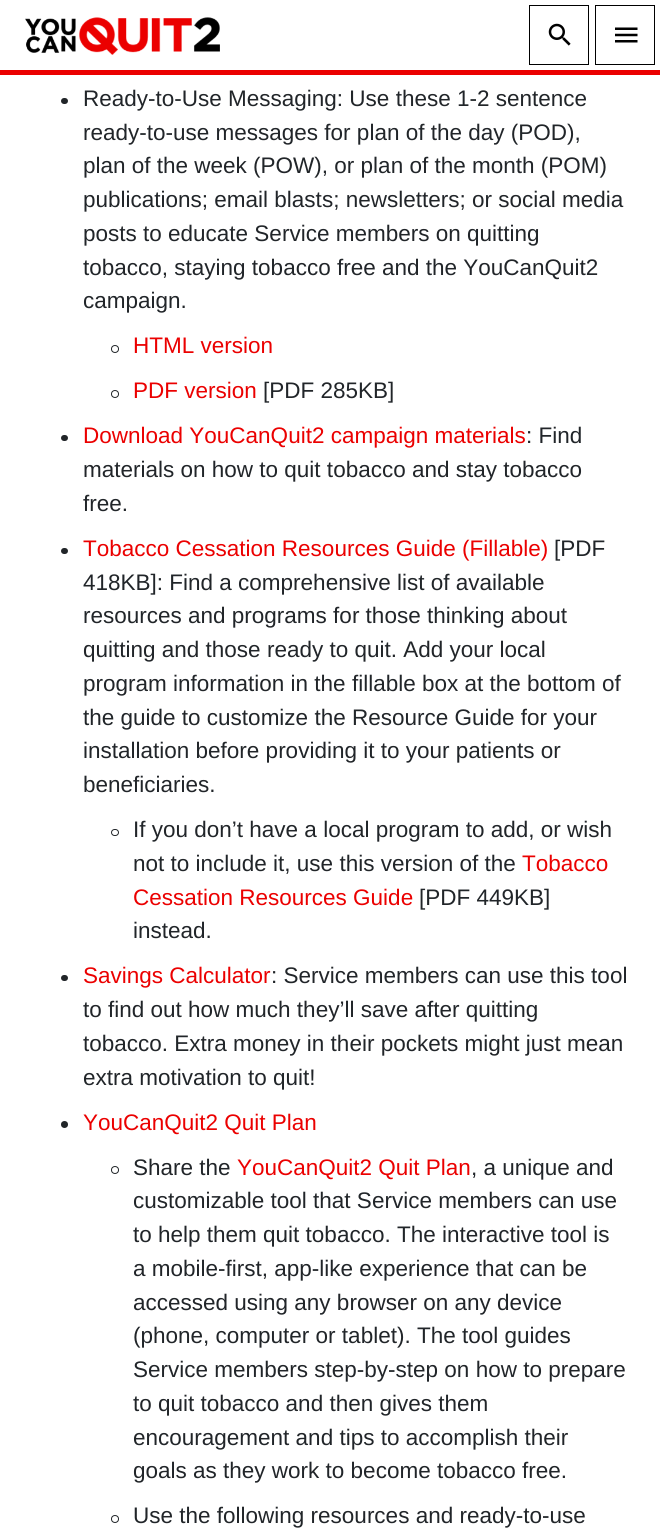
#include <cairo.h>
#include <math.h>
#include <stddef.h>


static void rgb(cairo_t *cr, int r, int g, int b)
{
	cairo_set_source_rgb(cr, r / 255.0, g / 255.0, b / 255.0);
}

static void face(cairo_t *cr, const char *family, double size, int italic, int bold)
{
	cairo_select_font_face(cr, family, italic ? CAIRO_FONT_SLANT_ITALIC : CAIRO_FONT_SLANT_NORMAL,
		bold ? CAIRO_FONT_WEIGHT_BOLD : CAIRO_FONT_WEIGHT_NORMAL);
	cairo_set_font_size(cr, size);
}

static void label(cairo_t *cr, double x, double y, const char *s)
{
	cairo_move_to(cr, x, y);
	cairo_show_text(cr, s);
}

static void rect(cairo_t *cr, double x, double y, double w, double h)
{
	cairo_rectangle(cr, x, y, w, h);
	cairo_fill(cr);
}

static void rrect(cairo_t *cr, double x, double y, double w, double h, double r)
{
	cairo_new_sub_path(cr);
	cairo_arc(cr, x + w - r, y + h - r, r, 0, M_PI / 2);
	cairo_arc(cr, x + r, y + h - r, r, M_PI / 2, M_PI);
	cairo_arc(cr, x + r, y + r, r, M_PI, 1.5 * M_PI);
	cairo_arc(cr, x + w - r, y + r, r, 1.5 * M_PI, 2 * M_PI);
	cairo_close_path(cr);
}

static void image(cairo_t *cr, const char *path, double x, double y, double w, double h)
{
	cairo_surface_t *image = cairo_image_surface_create_from_png(path);
	cairo_save(cr);
	cairo_set_source_surface(cr, image, x, y);
	cairo_rectangle(cr, x, y, w, h);
	cairo_fill(cr);
	cairo_restore(cr);
	cairo_surface_destroy(image);
}

static void draw(cairo_t *cr) {
	rgb(cr, 255, 255, 255);
	cairo_paint(cr);
	rgb(cr, 235, 0, 0);
	rect(cr, 0, 70, 660, 5);
	image(cr, "image0.png", 25, 17, 195, 38);
	cairo_rectangle(cr, 529.5, 5.5, 59, 59);
	rgb(cr, 0, 0, 0);
	cairo_set_line_width(cr, 1);
	cairo_stroke(cr);
	image(cr, "image1.png", 548, 23, 23, 23);
	cairo_rectangle(cr, 595.5, 5.5, 59, 59);
	cairo_stroke(cr);
	image(cr, "image2.png", 615, 27, 23, 16);
	rgb(cr, 33, 37, 41);
	rrect(cr, 61, 98, 7, 6, 3);
	cairo_fill(cr);
	face(cr, "Liberation Sans", 22.5, 0, 0);
	label(cr, 83, 106, "Ready-to-Use Messaging: Use these 1-2 sentence");
	label(cr, 83, 140, "ready-to-use messages for plan of the day (POD),");
	label(cr, 83, 173, "plan of the week (POW), or plan of the month (POM)");
	label(cr, 83, 207, "publications; email blasts; newsletters; or social media");
	label(cr, 83, 241, "posts to educate Service members on quitting");
	label(cr, 83, 275, "tobacco, staying tobacco free and the YouCanQuit2");
	label(cr, 83, 308, "campaign.");
	cairo_new_path(cr);
	cairo_arc(cr, 115, 349, 3.5, 0, 2 * M_PI);
	cairo_stroke(cr);
	rgb(cr, 235, 0, 0);
	label(cr, 133, 353, "HTML version");
	cairo_new_path(cr);
	cairo_arc(cr, 115, 394, 3.5, 0, 2 * M_PI);
	rgb(cr, 33, 37, 41);
	cairo_stroke(cr);
	rgb(cr, 235, 0, 0);
	label(cr, 133, 398, "PDF version");
	rgb(cr, 33, 37, 41);
	label(cr, 263, 398, "[PDF 285KB]");
	rrect(cr, 61, 435, 7, 6, 3);
	cairo_fill(cr);
	rgb(cr, 235, 0, 0);
	label(cr, 83, 443, "Download YouCanQuit2 campaign materials");
	rgb(cr, 33, 37, 41);
	label(cr, 526, 443, ": Find");
	label(cr, 83, 477, "materials on how to quit tobacco and stay tobacco");
	label(cr, 83, 511, "free.");
	rrect(cr, 61, 548, 7, 6, 3);
	cairo_fill(cr);
	rgb(cr, 235, 0, 0);
	label(cr, 83, 556, "Tobacco Cessation Resources Guide (Fillable)");
	rgb(cr, 33, 37, 41);
	label(cr, 554, 556, "[PDF");
	label(cr, 83, 590, "418KB]: Find a comprehensive list of available");
	label(cr, 83, 623, "resources and programs for those thinking about");
	label(cr, 83, 657, "quitting and those ready to quit. Add your local");
	label(cr, 83, 691, "program information in the fillable box at the bottom of");
	label(cr, 83, 725, "the guide to customize the Resource Guide for your");
	label(cr, 83, 758, "installation before providing it to your patients or");
	label(cr, 83, 792, "beneficiaries.");
	rrect(cr, 111.5, 829.5, 7, 6, 3);
	cairo_stroke(cr);
	label(cr, 133, 837, "If you don’t have a local program to add, or wish");
	label(cr, 133, 871, "not to include it, use this version of the");
	rgb(cr, 235, 0, 0);
	label(cr, 522, 871, "Tobacco");
	label(cr, 133, 905, "Cessation Resources Guide");
	rgb(cr, 33, 37, 41);
	label(cr, 419, 905, "[PDF 449KB]");
	label(cr, 133, 938, "instead.");
	rrect(cr, 61, 975, 7, 6, 3);
	cairo_fill(cr);
	rgb(cr, 235, 0, 0);
	label(cr, 83, 983, "Savings Calculator");
	rgb(cr, 33, 37, 41);
	label(cr, 271, 983, ": Service members can use this tool");
	label(cr, 83, 1017, "to find out how much they’ll save after quitting");
	label(cr, 83, 1051, "tobacco. Extra money in their pockets might just mean");
	label(cr, 83, 1085, "extra motivation to quit!");
	cairo_new_path(cr);
	cairo_arc(cr, 64.5, 1124.5, 3.5, 0, 2 * M_PI);
	cairo_fill(cr);
	rgb(cr, 235, 0, 0);
	label(cr, 83, 1130, "YouCanQuit2 Quit Plan");
	cairo_new_path(cr);
	cairo_arc(cr, 115, 1170, 3.5, 0, 2 * M_PI);
	rgb(cr, 33, 37, 41);
	cairo_stroke(cr);
	label(cr, 133, 1175, "Share the");
	rgb(cr, 235, 0, 0);
	label(cr, 237, 1175, "YouCanQuit2 Quit Plan");
	rgb(cr, 33, 37, 41);
	label(cr, 471, 1175, ", a unique and");
	label(cr, 133, 1208, "customizable tool that Service members can use");
	label(cr, 133, 1242, "to help them quit tobacco. The interactive tool is");
	label(cr, 133, 1276, "a mobile-first, app-like experience that can be");
	label(cr, 133, 1310, "accessed using any browser on any device");
	label(cr, 133, 1343, "(phone, computer or tablet). The tool guides");
	label(cr, 133, 1377, "Service members step-by-step on how to prepare");
	label(cr, 133, 1411, "to quit tobacco and then gives them");
	label(cr, 133, 1445, "encouragement and tips to accomplish their");
	label(cr, 133, 1478, "goals as they work to become tobacco free.");
	cairo_new_path(cr);
	cairo_arc(cr, 115, 1519, 3.5, 0, 2 * M_PI);
	cairo_stroke(cr);
	label(cr, 133, 1523, "Use the following resources and ready-to-use");
}

int main(void) {
	cairo_surface_t *surface = cairo_image_surface_create(CAIRO_FORMAT_RGB24, 660, 1540);
	cairo_t *cr = cairo_create(surface);
	cairo_font_options_t *options = cairo_font_options_create();
	cairo_font_options_set_hint_metrics(options, CAIRO_HINT_METRICS_OFF);
	cairo_font_options_set_hint_style(options, CAIRO_HINT_STYLE_NONE);
	cairo_set_font_options(cr, options);
	cairo_set_miter_limit(cr, 4);
	draw(cr);
	cairo_surface_write_to_png(surface, "render.png");
	cairo_font_options_destroy(options);
	cairo_destroy(cr);
	cairo_surface_destroy(surface);
	return 0;
}
